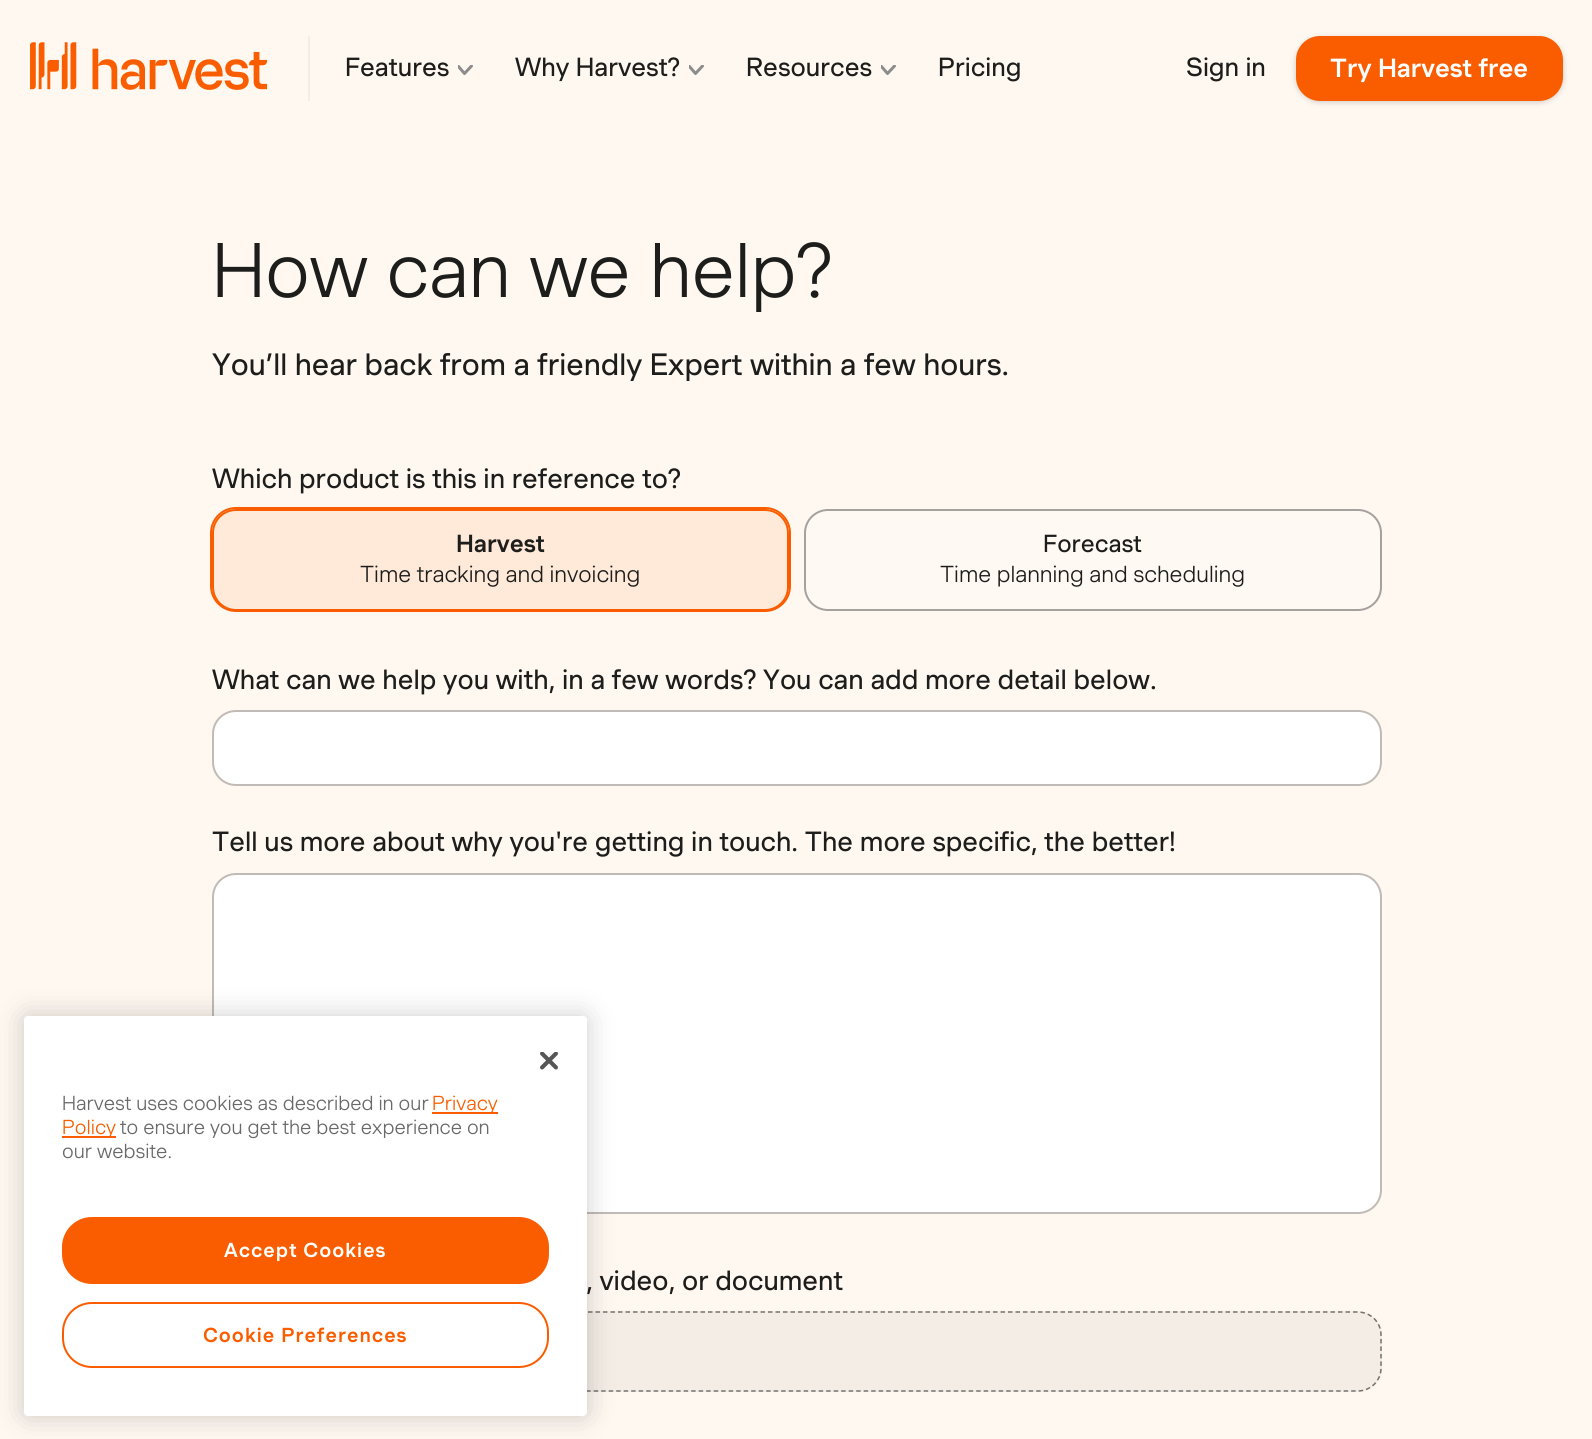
#include <cairo.h>
#include <math.h>
#include <stddef.h>


static void rgb(cairo_t *cr, int r, int g, int b)
{
	cairo_set_source_rgb(cr, r / 255.0, g / 255.0, b / 255.0);
}

static void face(cairo_t *cr, const char *family, double size, int italic, int bold)
{
	cairo_select_font_face(cr, family, italic ? CAIRO_FONT_SLANT_ITALIC : CAIRO_FONT_SLANT_NORMAL,
		bold ? CAIRO_FONT_WEIGHT_BOLD : CAIRO_FONT_WEIGHT_NORMAL);
	cairo_set_font_size(cr, size);
}

static void label(cairo_t *cr, double x, double y, const char *s)
{
	cairo_move_to(cr, x, y);
	cairo_show_text(cr, s);
}

static void tracked(cairo_t *cr, double x, double y, const char *s, double letter, double word)
{
	cairo_move_to(cr, x, y);
	while (*s) {
		char ch[5] = {0};
		int n = 0;
		do ch[n++] = *s++; while ((*s & 0xC0) == 0x80);
		cairo_show_text(cr, ch);
		cairo_rel_move_to(cr, letter + word * (*ch == ' '), 0);
	}
}

static void rect(cairo_t *cr, double x, double y, double w, double h)
{
	cairo_rectangle(cr, x, y, w, h);
	cairo_fill(cr);
}

static void rrect(cairo_t *cr, double x, double y, double w, double h, double r)
{
	cairo_new_sub_path(cr);
	cairo_arc(cr, x + w - r, y + h - r, r, 0, M_PI / 2);
	cairo_arc(cr, x + r, y + h - r, r, M_PI / 2, M_PI);
	cairo_arc(cr, x + r, y + r, r, M_PI, 1.5 * M_PI);
	cairo_arc(cr, x + w - r, y + r, r, 1.5 * M_PI, 2 * M_PI);
	cairo_close_path(cr);
}

static void soft_shadow(cairo_t *cr, double x, double y, double w, double h, double r, double blur, double alpha)
{
	cairo_push_group_with_content(cr, CAIRO_CONTENT_ALPHA);
	cairo_set_operator(cr, CAIRO_OPERATOR_SOURCE);
	for (int i = 15; i >= -15 && fmin(w, h) + blur * i / 3 > 0; i -= 2) {
		double e = blur * i / 6;
		cairo_set_source_rgba(cr, 0, 0, 0, alpha * erfc((i - 1) / 8.5) / 2);
		rrect(cr, x - e, y - e, w + 2 * e, h + 2 * e, fmax(0, fmin(r + e + blur * .6, fmin(w, h) / 2 + e)));
		cairo_fill(cr);
	}
	cairo_pattern_t *soft = cairo_pop_group(cr);
	cairo_mask(cr, soft);
	cairo_pattern_destroy(soft);
}

static void image(cairo_t *cr, const char *path, double x, double y, double w, double h)
{
	cairo_surface_t *image = cairo_image_surface_create_from_png(path);
	cairo_save(cr);
	cairo_set_source_surface(cr, image, x, y);
	cairo_rectangle(cr, x, y, w, h);
	cairo_fill(cr);
	cairo_restore(cr);
	cairo_surface_destroy(image);
}

static void draw(cairo_t *cr) {
	rgb(cr, 255, 248, 241);
	cairo_paint(cr);
	rgb(cr, 244, 237, 230);
	rect(cr, 308, 36, 2, 65);
	image(cr, "image0.png", 30, 42, 238, 48);
	face(cr, "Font", 25.5, 0, 0);
	rgb(cr, 29, 30, 28);
	label(cr, 345, 76, "Features");
	cairo_save(cr);
	cairo_rectangle(cr, 458, 65, 16, 10);
	cairo_clip(cr);
	cairo_new_path(cr);
	cairo_move_to(cr, 458, 66);
	cairo_line_to(cr, 464.5, 73.5);
	cairo_line_to(cr, 471.5, 66);
	rgb(cr, 140, 140, 140);
	cairo_set_line_width(cr, 3);
	cairo_set_line_cap(cr, CAIRO_LINE_CAP_ROUND);
	cairo_set_line_join(cr, CAIRO_LINE_JOIN_ROUND);
	cairo_stroke(cr);
	cairo_restore(cr);
	label(cr, 515, 76, "Why Harvest?");
	cairo_save(cr);
	cairo_rectangle(cr, 689, 65, 16, 10);
	cairo_clip(cr);
	cairo_new_path(cr);
	cairo_move_to(cr, 689, 66);
	cairo_line_to(cr, 695.5, 73.5);
	cairo_line_to(cr, 702.5, 66);
	rgb(cr, 140, 140, 140);
	cairo_set_line_width(cr, 3);
	cairo_set_line_cap(cr, CAIRO_LINE_CAP_ROUND);
	cairo_set_line_join(cr, CAIRO_LINE_JOIN_ROUND);
	cairo_stroke(cr);
	cairo_restore(cr);
	label(cr, 746, 76, "Resources");
	cairo_save(cr);
	cairo_rectangle(cr, 881, 65, 16, 10);
	cairo_clip(cr);
	cairo_new_path(cr);
	cairo_move_to(cr, 881, 66);
	cairo_line_to(cr, 887.5, 73.5);
	cairo_line_to(cr, 894.5, 66);
	rgb(cr, 140, 140, 140);
	cairo_set_line_width(cr, 3);
	cairo_set_line_cap(cr, CAIRO_LINE_CAP_ROUND);
	cairo_set_line_join(cr, CAIRO_LINE_JOIN_ROUND);
	cairo_stroke(cr);
	cairo_restore(cr);
	label(cr, 938, 76, "Pricing");
	label(cr, 1186, 76, "Sign in");
	rgb(cr, 0, 0, 0);
	soft_shadow(cr, 1296, 38, 267, 64, 24, 3, 0.2);
	rgb(cr, 250, 93, 0);
	rrect(cr, 1297, 37, 265, 63, 23);
	cairo_fill_preserve(cr);
	cairo_stroke(cr);
	face(cr, "Font Medium", 25.5, 0, 0);
	rgb(cr, 255, 255, 255);
	label(cr, 1330, 77, "Try Harvest free");
	face(cr, "Font Light", 75, 0, 0);
	rgb(cr, 29, 30, 28);
	label(cr, 212, 297, "How can we help?");
	face(cr, "Font", 30, 0, 0);
	label(cr, 212, 375, "You’ll hear back from a friendly Expert within a few hours.");
	face(cr, "Font", 27, 0, 0);
	label(cr, 212, 488, "Which product is this in reference to?");
	rrect(cr, 211, 508, 579, 103, 25);
	rgb(cr, 250, 93, 0);
	cairo_stroke(cr);
	cairo_set_source_rgba(cr, 0.98, 0.365, 0, 0.1);
	rrect(cr, 213, 510, 575, 100, 23);
	cairo_fill_preserve(cr);
	rgb(cr, 250, 93, 0);
	cairo_stroke(cr);
	face(cr, "Font Medium", 24, 0, 0);
	rgb(cr, 29, 30, 28);
	label(cr, 456, 552, "Harvest");
	face(cr, "Font Light", 22.5, 0, 0);
	label(cr, 360, 582, "Time tracking and invoicing");
	rgb(cr, 255, 249, 244);
	rrect(cr, 805, 510, 576, 100, 23);
	cairo_fill_preserve(cr);
	rgb(cr, 165, 161, 158);
	cairo_stroke(cr);
	face(cr, "Font", 24, 0, 0);
	rgb(cr, 29, 30, 28);
	label(cr, 1043, 552, "Forecast");
	face(cr, "Font Light", 22.5, 0, 0);
	label(cr, 940, 582, "Time planning and scheduling");
	face(cr, "Font", 27, 0, 0);
	label(cr, 212, 689, "What can we help you with, in a few words? You can add more detail below.");
	rgb(cr, 255, 255, 255);
	rrect(cr, 213, 711, 1168, 74, 23);
	cairo_fill_preserve(cr);
	rgb(cr, 192, 187, 182);
	cairo_stroke(cr);
	rgb(cr, 29, 30, 28);
	label(cr, 212, 851, "Tell us more about why you're getting in touch. The more specific, the better!");
	rgb(cr, 255, 255, 255);
	rrect(cr, 213, 874, 1168, 339, 23);
	cairo_fill_preserve(cr);
	rgb(cr, 192, 187, 182);
	cairo_stroke(cr);
	rgb(cr, 29, 30, 28);
	label(cr, 586, 1290, ", video, or document");
	rgb(cr, 244, 237, 230);
	rrect(cr, 212, 1311, 1170, 81, 24);
	cairo_fill(cr);
	cairo_new_path(cr);
	cairo_move_to(cr, 235.5, 1312);
	cairo_line_to(cr, 1357.5, 1312);
	cairo_curve_to(cr, 1370.5, 1312, 1381, 1322, 1381, 1335);
	cairo_line_to(cr, 1381, 1368);
	cairo_curve_to(cr, 1381, 1381, 1370.5, 1391, 1357.5, 1391);
	cairo_line_to(cr, 235.5, 1391);
	cairo_curve_to(cr, 222.5, 1391, 212, 1381, 212, 1368);
	cairo_line_to(cr, 212, 1335);
	cairo_curve_to(cr, 212, 1322, 222.5, 1312, 235.5, 1312);
	cairo_close_path(cr);
	cairo_set_source_rgba(cr, 0.114, 0.118, 0.11, 0.6);
	cairo_set_line_width(cr, 1.5);
	cairo_set_dash(cr, (double[]){4.5, 3}, 2, 0);
	cairo_stroke(cr);
	rgb(cr, 0, 0, 0);
	soft_shadow(cr, 24, 1016, 563, 400, 4, 13.5, 0.2);
	rgb(cr, 255, 255, 255);
	rrect(cr, 24, 1016, 563, 400, 4);
	cairo_fill(cr);
	image(cr, "image1.png", 540, 1052, 18, 18);
	face(cr, "Font Light", 19.7, 0, 0);
	rgb(cr, 105, 105, 105);
	label(cr, 62, 1110, "Harvest uses cookies as described in our");
	rgb(cr, 250, 93, 0);
	rect(cr, 432, 1112, 66, 2);
	label(cr, 432, 1110, "Privacy");
	rect(cr, 62, 1136, 54, 2);
	label(cr, 62, 1134, "Policy");
	rgb(cr, 105, 105, 105);
	label(cr, 120, 1134, "to ensure you get the best experience on");
	label(cr, 62, 1158, "our website.");
	rgb(cr, 250, 93, 0);
	rrect(cr, 63, 1218, 485, 65, 29);
	cairo_fill_preserve(cr);
	cairo_set_line_width(cr, 2);
	cairo_set_dash(cr, NULL, 0, 0);
	cairo_stroke(cr);
	face(cr, "Font Medium", 19.7, 0, 0);
	rgb(cr, 255, 255, 255);
	tracked(cr, 224, 1257, "Accept Cookies", 1, 0);
	rrect(cr, 63, 1303, 485, 64, 29);
	rgb(cr, 250, 93, 0);
	cairo_stroke(cr);
	tracked(cr, 203, 1342, "Cookie Preferences", 1, 0);
}

int main(void) {
	cairo_surface_t *surface = cairo_image_surface_create(CAIRO_FORMAT_RGB24, 1592, 1439);
	cairo_t *cr = cairo_create(surface);
	cairo_font_options_t *options = cairo_font_options_create();
	cairo_font_options_set_hint_metrics(options, CAIRO_HINT_METRICS_OFF);
	cairo_font_options_set_hint_style(options, CAIRO_HINT_STYLE_NONE);
	cairo_set_font_options(cr, options);
	cairo_set_miter_limit(cr, 4);
	draw(cr);
	cairo_surface_write_to_png(surface, "render.png");
	cairo_font_options_destroy(options);
	cairo_destroy(cr);
	cairo_surface_destroy(surface);
	return 0;
}
